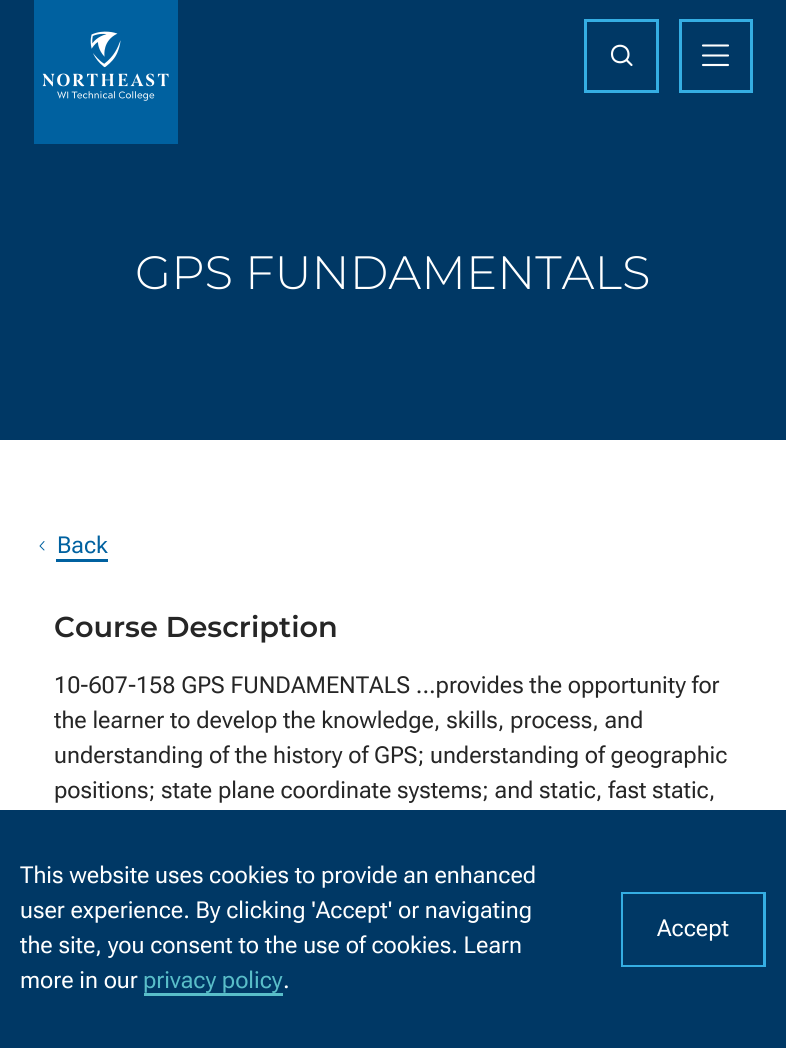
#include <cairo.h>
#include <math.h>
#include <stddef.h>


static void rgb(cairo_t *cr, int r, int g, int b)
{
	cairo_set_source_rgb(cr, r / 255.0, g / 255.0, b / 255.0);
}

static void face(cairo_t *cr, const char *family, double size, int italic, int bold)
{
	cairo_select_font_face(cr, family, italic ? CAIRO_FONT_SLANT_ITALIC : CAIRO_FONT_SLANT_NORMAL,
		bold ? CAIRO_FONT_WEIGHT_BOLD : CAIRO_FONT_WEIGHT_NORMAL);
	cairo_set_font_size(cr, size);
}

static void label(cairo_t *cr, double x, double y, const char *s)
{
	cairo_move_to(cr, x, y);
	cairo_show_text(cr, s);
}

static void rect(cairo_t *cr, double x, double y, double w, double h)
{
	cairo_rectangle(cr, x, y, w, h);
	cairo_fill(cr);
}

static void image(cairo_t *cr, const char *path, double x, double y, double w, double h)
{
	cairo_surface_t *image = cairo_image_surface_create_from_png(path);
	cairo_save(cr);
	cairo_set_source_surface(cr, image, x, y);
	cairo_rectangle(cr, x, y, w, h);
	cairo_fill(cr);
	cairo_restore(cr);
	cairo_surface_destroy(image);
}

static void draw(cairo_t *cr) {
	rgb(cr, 255, 255, 255);
	cairo_paint(cr);
	rgb(cr, 0, 56, 101);
	rect(cr, 0, 0, 786, 440);
	cairo_rectangle(cr, 585.5, 20.5, 72, 71);
	rgb(cr, 53, 174, 227);
	cairo_set_line_width(cr, 3);
	cairo_stroke(cr);
	cairo_new_path(cr);
	cairo_move_to(cr, 626.5, 60);
	cairo_line_to(cr, 631.5, 65);
	cairo_move_to(cr, 612, 54);
	cairo_curve_to(cr, 612, 65.5, 629, 64.5, 628.5, 54);
	cairo_curve_to(cr, 628, 43, 612, 43, 612, 54);
	cairo_close_path(cr);
	rgb(cr, 255, 255, 255);
	cairo_set_line_width(cr, 2.1);
	cairo_set_line_cap(cr, CAIRO_LINE_CAP_ROUND);
	cairo_set_line_join(cr, CAIRO_LINE_JOIN_ROUND);
	cairo_stroke(cr);
	cairo_rectangle(cr, 680.5, 20.5, 71, 71);
	rgb(cr, 53, 174, 227);
	cairo_set_line_width(cr, 3);
	cairo_set_line_cap(cr, CAIRO_LINE_CAP_BUTT);
	cairo_set_line_join(cr, CAIRO_LINE_JOIN_MITER);
	cairo_stroke(cr);
	cairo_new_path(cr);
	cairo_move_to(cr, 703, 45.5);
	cairo_line_to(cr, 728, 45.5);
	cairo_move_to(cr, 703, 55.5);
	cairo_line_to(cr, 728, 55.5);
	cairo_move_to(cr, 703, 65);
	cairo_line_to(cr, 728, 65);
	rgb(cr, 255, 255, 255);
	cairo_set_line_width(cr, 2.1);
	cairo_set_line_cap(cr, CAIRO_LINE_CAP_ROUND);
	cairo_set_line_join(cr, CAIRO_LINE_JOIN_ROUND);
	cairo_stroke(cr);
	rgb(cr, 0, 97, 160);
	rect(cr, 34, 0, 144, 144);
	image(cr, "image0.png", 42, 31, 127, 70);
	face(cr, "Montserrat Light", 46.75, 0, 0);
	rgb(cr, 255, 255, 255);
	label(cr, 135, 289, "GPS FUNDAMENTALS");
	cairo_new_path(cr);
	cairo_move_to(cr, 44, 541.5);
	cairo_line_to(cr, 40, 546);
	cairo_line_to(cr, 44, 550);
	rgb(cr, 0, 97, 160);
	cairo_set_line_width(cr, 1);
	cairo_stroke(cr);
	face(cr, "Roboto Flex", 23.3, 0, 0);
	label(cr, 57, 553, "Back");
	rect(cr, 56, 559, 52, 3);
	face(cr, "Montserrat SemiBold", 28.75, 0, 0);
	rgb(cr, 38, 38, 38);
	label(cr, 54, 637, "Course Description");
	face(cr, "Roboto Flex", 23.3, 0, 0);
	label(cr, 54, 693, "10-607-158 GPS FUNDAMENTALS ...provides the opportunity for");
	label(cr, 54, 728, "the learner to develop the knowledge, skills, process, and");
	label(cr, 54, 763, "understanding of the history of GPS; understanding of geographic");
	label(cr, 54, 798, "positions; state plane coordinate systems; and static, fast static,");
	rgb(cr, 0, 56, 101);
	rect(cr, 0, 810, 786, 238);
	rgb(cr, 255, 255, 255);
	label(cr, 20, 883, "This website uses cookies to provide an enhanced");
	label(cr, 20, 918, "user experience. By clicking 'Accept' or navigating");
	label(cr, 20, 953, "the site, you consent to the use of cookies. Learn");
	label(cr, 20, 988, "more in our");
	rgb(cr, 89, 190, 201);
	label(cr, 143, 988, "privacy policy");
	rect(cr, 144, 993, 139, 3);
	rgb(cr, 255, 255, 255);
	label(cr, 283, 988, ".");
	cairo_rectangle(cr, 621.5, 892.5, 143, 74);
	rgb(cr, 53, 174, 227);
	cairo_set_line_width(cr, 3);
	cairo_set_line_cap(cr, CAIRO_LINE_CAP_BUTT);
	cairo_set_line_join(cr, CAIRO_LINE_JOIN_MITER);
	cairo_stroke(cr);
	cairo_rectangle(cr, 619.5, 890.5, 148, 78);
	rgb(cr, 0, 56, 101);
	cairo_stroke(cr);
	rgb(cr, 255, 255, 255);
	label(cr, 657, 936, "Accept");
}

int main(void) {
	cairo_surface_t *surface = cairo_image_surface_create(CAIRO_FORMAT_RGB24, 786, 1048);
	cairo_t *cr = cairo_create(surface);
	cairo_font_options_t *options = cairo_font_options_create();
	cairo_font_options_set_hint_metrics(options, CAIRO_HINT_METRICS_OFF);
	cairo_font_options_set_hint_style(options, CAIRO_HINT_STYLE_NONE);
	cairo_set_font_options(cr, options);
	cairo_set_miter_limit(cr, 4);
	draw(cr);
	cairo_surface_write_to_png(surface, "render.png");
	cairo_font_options_destroy(options);
	cairo_destroy(cr);
	cairo_surface_destroy(surface);
	return 0;
}
